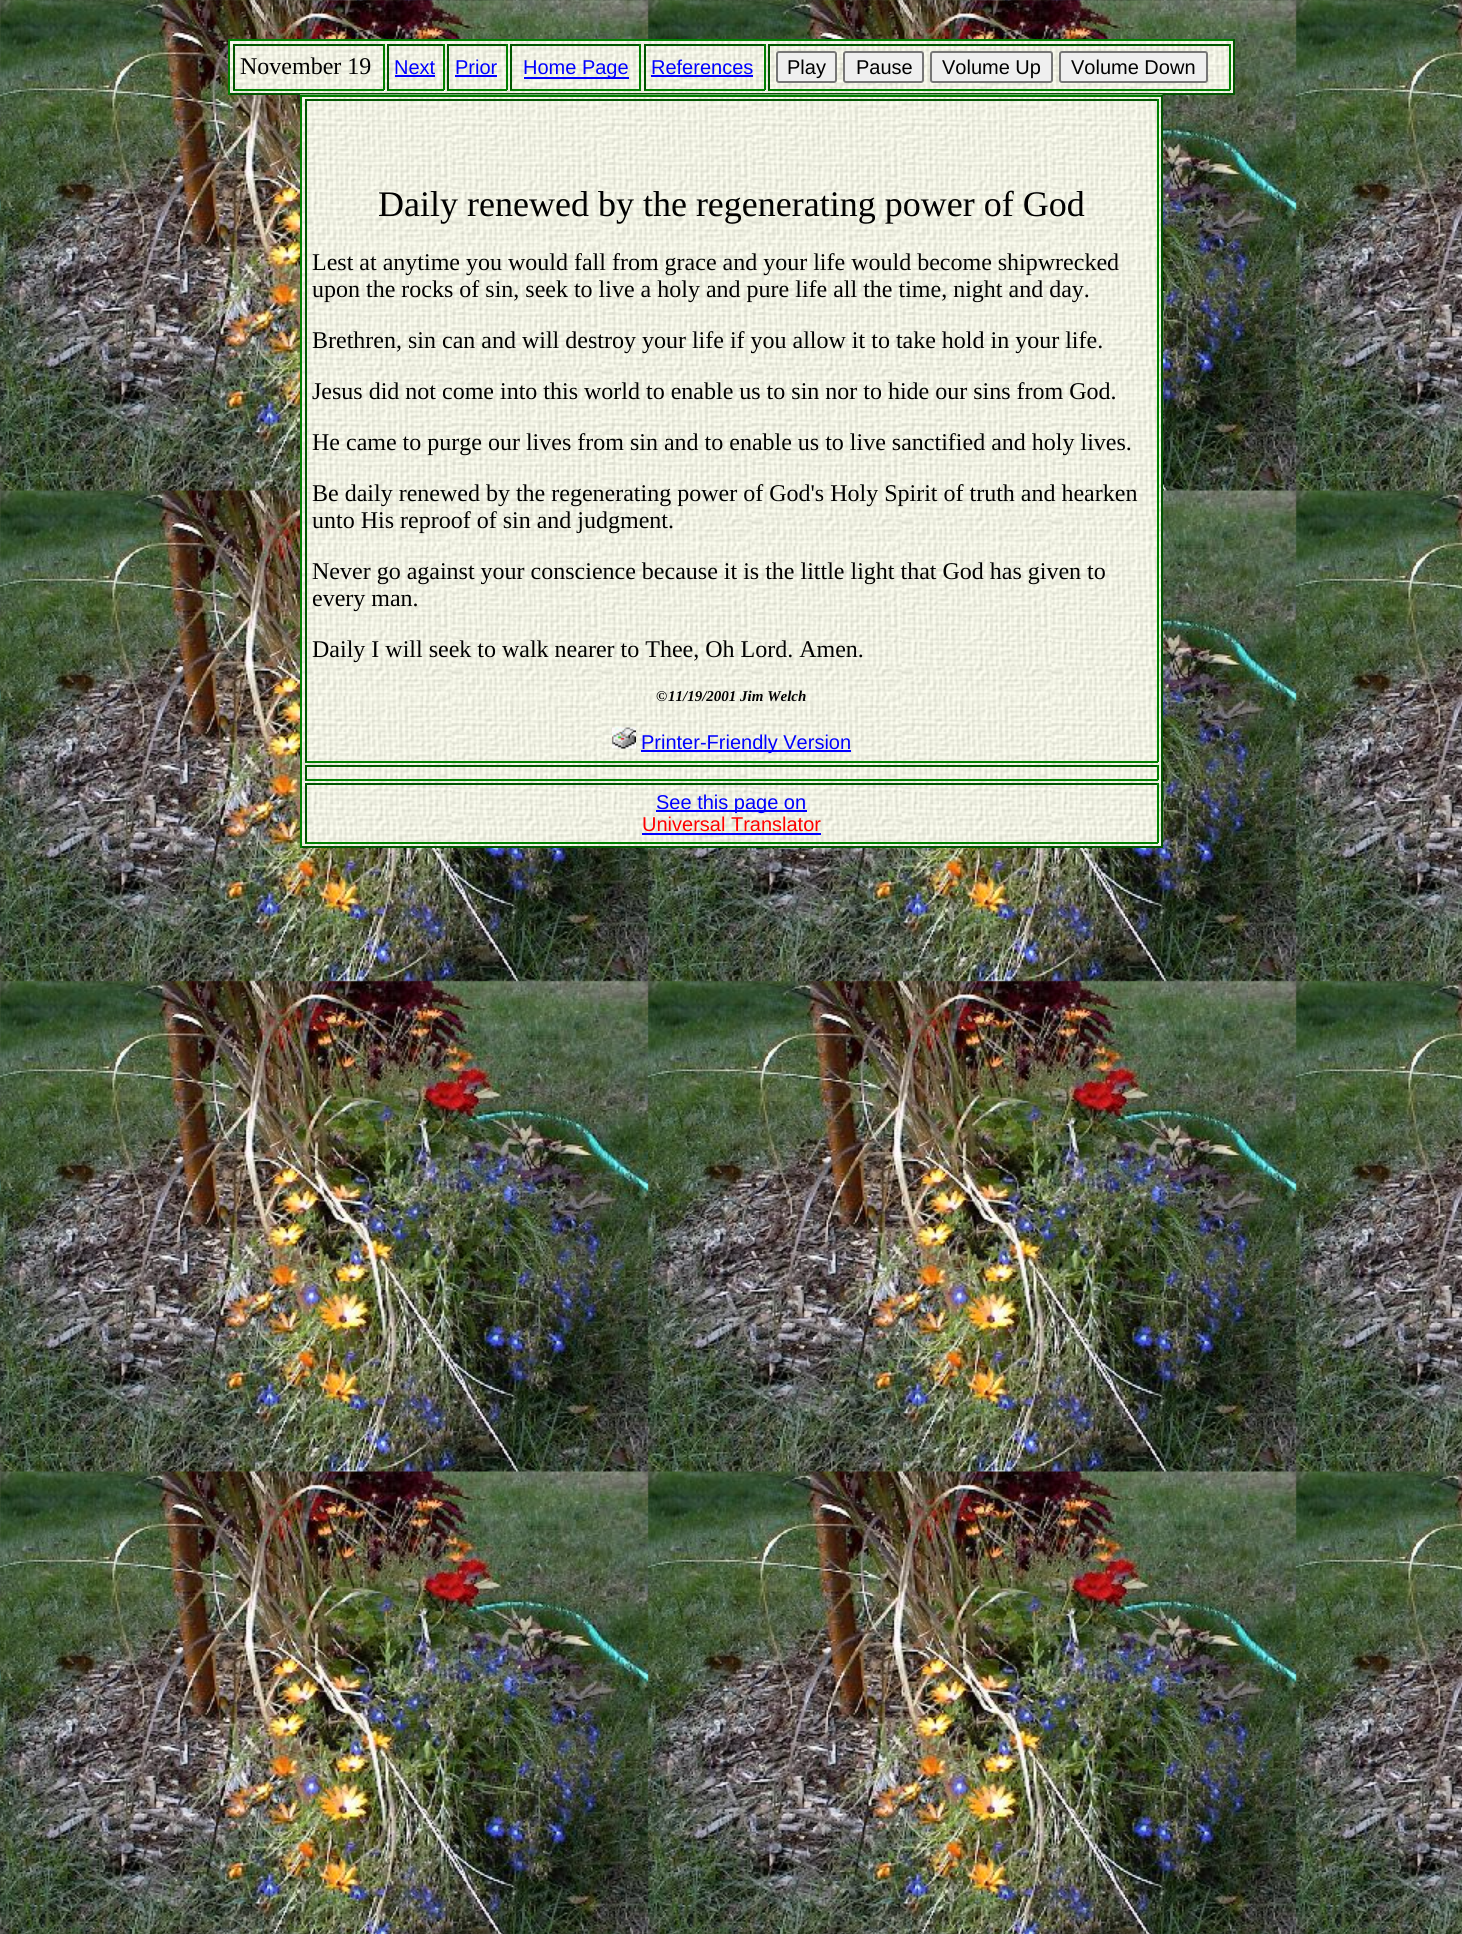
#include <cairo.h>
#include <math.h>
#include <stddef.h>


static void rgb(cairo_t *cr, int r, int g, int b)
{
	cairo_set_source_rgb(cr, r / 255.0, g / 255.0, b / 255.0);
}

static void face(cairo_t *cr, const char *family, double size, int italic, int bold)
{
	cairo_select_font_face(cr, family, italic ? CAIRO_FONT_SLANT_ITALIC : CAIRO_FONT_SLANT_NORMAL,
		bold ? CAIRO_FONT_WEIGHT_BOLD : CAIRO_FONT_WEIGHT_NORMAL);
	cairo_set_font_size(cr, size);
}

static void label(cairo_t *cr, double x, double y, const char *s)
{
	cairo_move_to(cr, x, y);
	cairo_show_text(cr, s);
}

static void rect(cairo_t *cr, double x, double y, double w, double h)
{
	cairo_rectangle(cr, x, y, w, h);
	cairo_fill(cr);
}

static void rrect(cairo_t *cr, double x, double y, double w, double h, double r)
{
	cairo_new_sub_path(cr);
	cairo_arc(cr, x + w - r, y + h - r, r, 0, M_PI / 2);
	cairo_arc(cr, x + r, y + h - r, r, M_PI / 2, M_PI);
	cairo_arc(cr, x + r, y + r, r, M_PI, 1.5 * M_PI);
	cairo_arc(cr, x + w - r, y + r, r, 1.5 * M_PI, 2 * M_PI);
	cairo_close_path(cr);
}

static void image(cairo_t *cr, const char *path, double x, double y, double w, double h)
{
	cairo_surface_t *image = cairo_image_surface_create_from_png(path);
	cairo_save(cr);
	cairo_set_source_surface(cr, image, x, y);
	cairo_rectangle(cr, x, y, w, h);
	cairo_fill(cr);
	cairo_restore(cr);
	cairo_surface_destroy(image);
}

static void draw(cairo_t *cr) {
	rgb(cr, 255, 255, 255);
	cairo_paint(cr);
	image(cr, "image0.png", 0, 0, 1462, 1934);
	image(cr, "image1.png", 230, 41, 1003, 52);
	rgb(cr, 0, 128, 0);
	rect(cr, 228, 39, 1007, 2);
	rgb(cr, 0, 85, 0);
	rect(cr, 1233, 39, 2, 56);
	rect(cr, 228, 93, 1007, 2);
	rgb(cr, 0, 128, 0);
	rect(cr, 228, 39, 2, 56);
	rgb(cr, 0, 85, 0);
	rect(cr, 233, 44, 151, 2);
	rgb(cr, 0, 128, 0);
	rect(cr, 383, 44, 2, 46);
	rect(cr, 233, 89, 151, 2);
	rgb(cr, 0, 85, 0);
	rect(cr, 233, 44, 2, 46);
	face(cr, "Liberation Serif", 24, 0, 0);
	rgb(cr, 0, 0, 0);
	label(cr, 240, 74, "November 19");
	rgb(cr, 0, 85, 0);
	rect(cr, 387, 44, 57, 2);
	rgb(cr, 0, 128, 0);
	rect(cr, 443, 44, 2, 46);
	rect(cr, 387, 89, 57, 2);
	rgb(cr, 0, 85, 0);
	rect(cr, 387, 44, 2, 46);
	face(cr, "Liberation Sans", 20, 0, 0);
	rgb(cr, 0, 0, 255);
	label(cr, 394, 74, "Next");
	rect(cr, 395, 75, 40, 2);
	rgb(cr, 0, 85, 0);
	rect(cr, 447, 44, 60, 2);
	rgb(cr, 0, 128, 0);
	rect(cr, 506, 44, 2, 46);
	rect(cr, 447, 89, 60, 2);
	rgb(cr, 0, 85, 0);
	rect(cr, 447, 44, 2, 46);
	rgb(cr, 0, 0, 255);
	label(cr, 455, 74, "Prior");
	rect(cr, 455, 75, 42, 2);
	rgb(cr, 0, 85, 0);
	rect(cr, 510, 44, 131, 2);
	rgb(cr, 0, 128, 0);
	rect(cr, 639, 44, 2, 46);
	rect(cr, 510, 89, 131, 2);
	rgb(cr, 0, 85, 0);
	rect(cr, 510, 44, 2, 46);
	rgb(cr, 0, 0, 255);
	rect(cr, 524, 77, 105, 2);
	label(cr, 523, 74, "Home Page");
	rgb(cr, 0, 85, 0);
	rect(cr, 644, 44, 121, 2);
	rgb(cr, 0, 128, 0);
	rect(cr, 764, 44, 2, 46);
	rect(cr, 644, 89, 121, 2);
	rgb(cr, 0, 85, 0);
	rect(cr, 644, 44, 2, 46);
	rgb(cr, 0, 0, 255);
	label(cr, 651, 74, "References");
	rect(cr, 651, 75, 102, 2);
	rgb(cr, 0, 85, 0);
	rect(cr, 768, 44, 462, 2);
	rgb(cr, 0, 128, 0);
	rect(cr, 1229, 44, 2, 46);
	rect(cr, 768, 89, 462, 2);
	rgb(cr, 0, 85, 0);
	rect(cr, 768, 44, 2, 46);
	rgb(cr, 239, 239, 239);
	rrect(cr, 777, 52, 59, 30, 2);
	cairo_fill_preserve(cr);
	rgb(cr, 118, 118, 118);
	cairo_stroke(cr);
	rgb(cr, 0, 0, 0);
	label(cr, 787, 74, "Play");
	rgb(cr, 239, 239, 239);
	rrect(cr, 844, 52, 79, 30, 2);
	cairo_fill_preserve(cr);
	rgb(cr, 118, 118, 118);
	cairo_stroke(cr);
	rgb(cr, 0, 0, 0);
	label(cr, 856, 74, "Pause");
	rgb(cr, 239, 239, 239);
	rrect(cr, 931, 52, 121, 30, 2);
	cairo_fill_preserve(cr);
	rgb(cr, 118, 118, 118);
	cairo_stroke(cr);
	rgb(cr, 0, 0, 0);
	label(cr, 942, 74, "Volume Up");
	rgb(cr, 239, 239, 239);
	rrect(cr, 1060, 52, 147, 30, 2);
	cairo_fill_preserve(cr);
	rgb(cr, 118, 118, 118);
	cairo_stroke(cr);
	rgb(cr, 0, 0, 0);
	label(cr, 1071, 74, "Volume Down");
	image(cr, "image2.png", 300, 94, 863, 752);
	rgb(cr, 0, 128, 0);
	rect(cr, 300, 95, 863, 2);
	rgb(cr, 0, 85, 0);
	rect(cr, 1161, 95, 2, 753);
	rect(cr, 300, 846, 863, 2);
	rgb(cr, 0, 128, 0);
	rect(cr, 300, 95, 2, 753);
	rgb(cr, 0, 85, 0);
	rect(cr, 305, 99, 853, 2);
	rgb(cr, 0, 128, 0);
	rect(cr, 1157, 99, 2, 663);
	rect(cr, 305, 761, 853, 2);
	rgb(cr, 0, 85, 0);
	rect(cr, 305, 99, 2, 663);
	face(cr, "Liberation Serif", 36, 0, 0);
	rgb(cr, 0, 0, 0);
	label(cr, 378, 216, "Daily renewed by the regenerating power of God");
	face(cr, "Liberation Serif", 24, 0, 0);
	label(cr, 312, 270, "Lest at anytime you would fall from grace and your life would become shipwrecked");
	label(cr, 312, 297, "upon the rocks of sin, seek to live a holy and pure life all the time, night and day.");
	label(cr, 312, 348, "Brethren, sin can and will destroy your life if you allow it to take hold in your life.");
	label(cr, 312, 399, "Jesus did not come into this world to enable us to sin nor to hide our sins from God.");
	label(cr, 312, 450, "He came to purge our lives from sin and to enable us to live sanctified and holy lives.");
	label(cr, 312, 501, "Be daily renewed by the regenerating power of God's Holy Spirit of truth and hearken");
	label(cr, 312, 528, "unto His reproof of sin and judgment.");
	label(cr, 312, 579, "Never go against your conscience because it is the little light that God has given to");
	label(cr, 312, 606, "every man.");
	label(cr, 312, 657, "Daily I will seek to walk nearer to Thee, Oh Lord. Amen.");
	face(cr, "Liberation Serif", 15, 0, 1);
	label(cr, 656, 701, "©");
	face(cr, "Liberation Serif", 15, 1, 1);
	label(cr, 668, 701, "11/19/2001 Jim Welch");
	image(cr, "image3.png", 612, 727, 24, 22);
	rgb(cr, 0, 0, 255);
	rect(cr, 641, 750, 210, 2);
	face(cr, "Liberation Sans", 20, 0, 0);
	label(cr, 641, 749, "Printer-Friendly Version");
	rgb(cr, 0, 85, 0);
	rect(cr, 305, 765, 853, 2);
	rgb(cr, 0, 128, 0);
	rect(cr, 1157, 765, 2, 15);
	rect(cr, 305, 779, 853, 2);
	rgb(cr, 0, 85, 0);
	rect(cr, 305, 765, 2, 15);
	rect(cr, 305, 783, 853, 2);
	rgb(cr, 0, 128, 0);
	rect(cr, 1157, 783, 2, 60);
	rect(cr, 305, 842, 853, 2);
	rgb(cr, 0, 85, 0);
	rect(cr, 305, 783, 2, 60);
	rgb(cr, 0, 0, 255);
	rect(cr, 656, 810, 151, 2);
	label(cr, 656, 809, "See this page on");
	rgb(cr, 255, 0, 0);
	label(cr, 642, 831, "Universal Translator");
	rgb(cr, 0, 0, 255);
	rect(cr, 642, 833, 179, 2);
}

int main(void) {
	cairo_surface_t *surface = cairo_image_surface_create(CAIRO_FORMAT_RGB24, 1462, 1934);
	cairo_t *cr = cairo_create(surface);
	cairo_font_options_t *options = cairo_font_options_create();
	cairo_font_options_set_hint_metrics(options, CAIRO_HINT_METRICS_OFF);
	cairo_font_options_set_hint_style(options, CAIRO_HINT_STYLE_NONE);
	cairo_set_font_options(cr, options);
	cairo_set_miter_limit(cr, 4);
	draw(cr);
	cairo_surface_write_to_png(surface, "render.png");
	cairo_font_options_destroy(options);
	cairo_destroy(cr);
	cairo_surface_destroy(surface);
	return 0;
}
